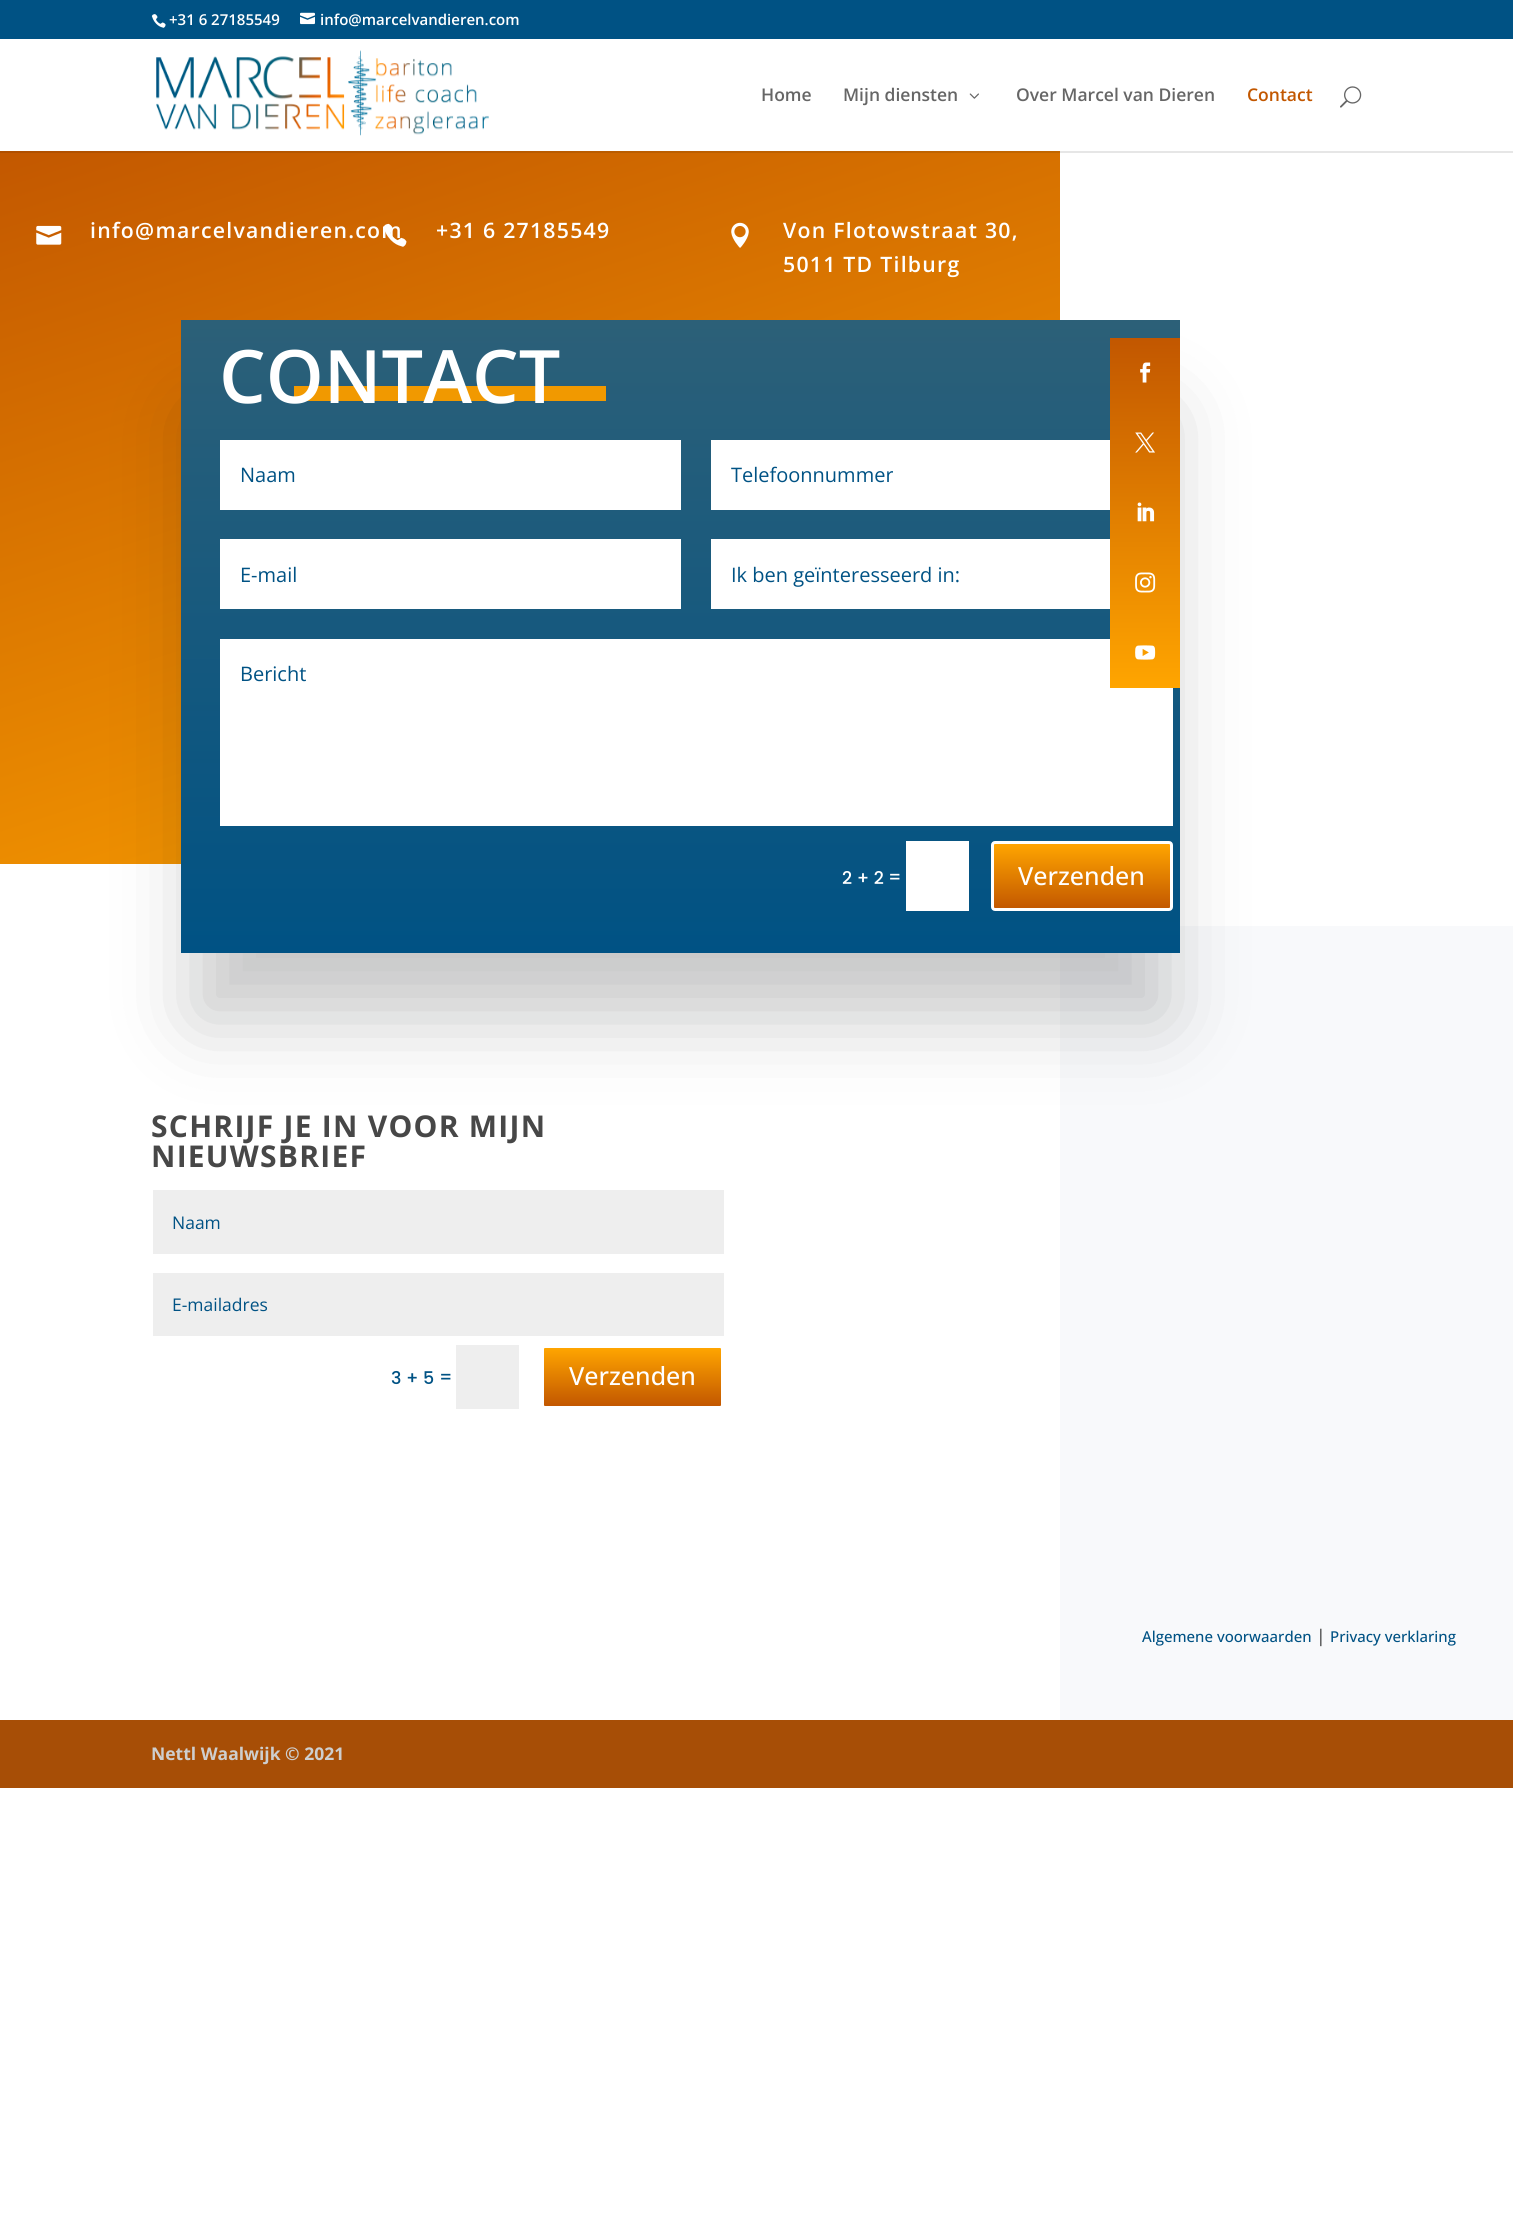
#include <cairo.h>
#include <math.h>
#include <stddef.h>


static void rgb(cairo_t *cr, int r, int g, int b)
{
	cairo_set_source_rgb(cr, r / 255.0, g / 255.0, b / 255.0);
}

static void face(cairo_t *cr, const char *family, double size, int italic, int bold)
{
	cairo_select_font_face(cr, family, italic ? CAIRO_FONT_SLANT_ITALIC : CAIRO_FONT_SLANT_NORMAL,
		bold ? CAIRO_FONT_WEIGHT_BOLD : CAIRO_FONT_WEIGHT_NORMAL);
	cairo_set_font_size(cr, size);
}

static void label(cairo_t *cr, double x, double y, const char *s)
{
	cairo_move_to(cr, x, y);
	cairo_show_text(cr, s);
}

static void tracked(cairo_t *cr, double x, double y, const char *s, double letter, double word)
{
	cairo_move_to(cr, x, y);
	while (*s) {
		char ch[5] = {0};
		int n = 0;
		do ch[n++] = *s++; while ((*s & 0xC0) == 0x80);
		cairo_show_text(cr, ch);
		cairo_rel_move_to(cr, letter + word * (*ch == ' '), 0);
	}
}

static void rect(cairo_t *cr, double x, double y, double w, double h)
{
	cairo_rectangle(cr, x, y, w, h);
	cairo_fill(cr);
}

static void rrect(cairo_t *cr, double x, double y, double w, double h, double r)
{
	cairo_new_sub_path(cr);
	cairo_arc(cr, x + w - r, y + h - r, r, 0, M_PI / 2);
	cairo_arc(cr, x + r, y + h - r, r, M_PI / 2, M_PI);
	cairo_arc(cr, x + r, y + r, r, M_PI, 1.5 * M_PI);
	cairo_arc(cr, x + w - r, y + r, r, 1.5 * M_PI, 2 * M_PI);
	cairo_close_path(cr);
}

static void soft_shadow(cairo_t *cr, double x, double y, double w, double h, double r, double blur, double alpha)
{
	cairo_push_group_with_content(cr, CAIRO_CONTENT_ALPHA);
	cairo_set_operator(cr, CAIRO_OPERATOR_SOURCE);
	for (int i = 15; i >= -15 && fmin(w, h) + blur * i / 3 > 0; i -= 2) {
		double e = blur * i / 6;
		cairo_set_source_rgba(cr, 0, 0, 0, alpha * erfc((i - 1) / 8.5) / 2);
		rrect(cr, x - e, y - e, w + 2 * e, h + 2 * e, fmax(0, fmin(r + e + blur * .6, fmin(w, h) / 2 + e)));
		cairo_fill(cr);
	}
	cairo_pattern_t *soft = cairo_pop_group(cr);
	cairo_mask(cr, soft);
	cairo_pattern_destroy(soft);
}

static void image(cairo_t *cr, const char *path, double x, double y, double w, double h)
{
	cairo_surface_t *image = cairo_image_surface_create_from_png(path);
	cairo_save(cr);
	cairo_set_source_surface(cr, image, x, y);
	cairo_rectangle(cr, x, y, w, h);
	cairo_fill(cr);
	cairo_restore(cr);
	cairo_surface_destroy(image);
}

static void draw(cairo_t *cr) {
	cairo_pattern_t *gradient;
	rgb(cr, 255, 255, 255);
	cairo_paint(cr);
	rgb(cr, 0, 82, 132);
	rect(cr, 0, 0, 1513, 39);
	image(cr, "image0.png", 151, 14, 15, 14);
	face(cr, "Open Sans SemiBold", 15, 0, 0);
	rgb(cr, 255, 255, 255);
	label(cr, 169, 25, "+31 6 27185549");
	image(cr, "image1.png", 300, 12, 15, 13);
	label(cr, 320, 25, "info@marcelvandieren.com");
	gradient = cairo_pattern_create_linear(373, 19, 687, 985);
	cairo_pattern_add_color_stop_rgba(gradient, 0, 0.761, 0.341, 0, 1);
	cairo_pattern_add_color_stop_rgba(gradient, 1, 1, 0.647, 0, 1);
	cairo_set_source(cr, gradient);
	cairo_pattern_destroy(gradient);
	rect(cr, 0, 151, 1060, 713);
	cairo_set_source_rgba(cr, 0, 0, 0, 0.1);
	cairo_new_path(cr);
	cairo_move_to(cr, 0, 151);
	cairo_line_to(cr, 0, 153);
	cairo_line_to(cr, 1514, 153);
	cairo_line_to(cr, 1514, 40);
	cairo_line_to(cr, 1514, 151);
	cairo_close_path(cr);
	cairo_fill(cr);
	image(cr, "image2.png", 156, 50, 333, 86);
	face(cr, "Open Sans SemiBold", 17.5, 0, 0);
	rgb(cr, 102, 102, 102);
	label(cr, 761, 101, "Home");
	label(cr, 843, 101, "Mijn diensten");
	image(cr, "image3.png", 969, 93, 10, 6);
	label(cr, 1016, 101, "Over Marcel van Dieren");
	rgb(cr, 194, 87, 0);
	label(cr, 1247, 101, "Contact");
	image(cr, "image4.png", 1340, 86, 22, 22);
	image(cr, "image5.png", 36, 225, 26, 20);
	face(cr, "Open Sans SemiBold", 21.25, 0, 0);
	rgb(cr, 255, 255, 255);
	tracked(cr, 90, 238, "info@marcelvandieren.com", 1.25, 0);
	image(cr, "image6.png", 383, 223, 24, 24);
	tracked(cr, 436, 238, "+31 6 27185549", 1.25, 0);
	image(cr, "image7.png", 731, 222, 18, 26);
	tracked(cr, 783, 238, "Von Flotowstraat 30,", 1.25, 0);
	tracked(cr, 783, 272, "5011 TD Tilburg", 1.25, 0);
	rgb(cr, 248, 249, 251);
	rect(cr, 1060, 926, 453, 794);
	rgb(cr, 20, 22, 23);
	soft_shadow(cr, 196, 415, 969, 603, 0, 40, 0.24);
	gradient = cairo_pattern_create_linear(681, 320, 681, 953);
	cairo_pattern_add_color_stop_rgba(gradient, 0, 0.173, 0.376, 0.471, 1);
	cairo_pattern_add_color_stop_rgba(gradient, 1, 0, 0.322, 0.518, 1);
	cairo_set_source(cr, gradient);
	cairo_pattern_destroy(gradient);
	rect(cr, 181, 320, 999, 633);
	rgb(cr, 241, 153, 0);
	rect(cr, 294, 386, 312, 15);
	face(cr, "Open Sans SemiBold", 73.75, 0, 0);
	rgb(cr, 255, 255, 255);
	label(cr, 219, 403, "CONTACT");
	rect(cr, 220, 440, 461, 70);
	face(cr, "Open Sans", 20, 0, 0);
	rgb(cr, 0, 82, 132);
	label(cr, 240, 482, "Naam");
	rgb(cr, 255, 255, 255);
	rect(cr, 711, 440, 399, 70);
	rgb(cr, 0, 82, 132);
	label(cr, 731, 482, "Telefoonnummer");
	rgb(cr, 255, 255, 255);
	rect(cr, 220, 539, 461, 70);
	rgb(cr, 0, 82, 132);
	label(cr, 240, 582, "E-mail");
	rgb(cr, 255, 255, 255);
	rect(cr, 711, 539, 399, 70);
	rgb(cr, 0, 82, 132);
	label(cr, 731, 582, "Ik ben geïnteresseerd in:");
	rgb(cr, 255, 255, 255);
	rect(cr, 220, 639, 953, 187);
	rgb(cr, 0, 82, 132);
	label(cr, 240, 681, "Bericht");
	face(cr, "Poppins Medium", 17.5, 0, 0);
	rgb(cr, 255, 255, 255);
	label(cr, 842, 884, "2 + 2");
	label(cr, 888, 883, "=");
	rect(cr, 906, 841, 63, 70);
	gradient = cairo_pattern_create_linear(1082, 844, 1082, 909);
	cairo_pattern_add_color_stop_rgba(gradient, 0, 1, 0.647, 0, 1);
	cairo_pattern_add_color_stop_rgba(gradient, 1, 0.761, 0.341, 0, 1);
	cairo_set_source(cr, gradient);
	cairo_pattern_destroy(gradient);
	rect(cr, 994, 844, 176, 64);
	rrect(cr, 992.5, 842.5, 179, 67, 2.5);
	rgb(cr, 255, 255, 255);
	cairo_set_line_width(cr, 3);
	cairo_stroke(cr);
	face(cr, "Open Sans Medium", 25, 0, 0);
	label(cr, 1018, 885, "Verzenden");
	gradient = cairo_pattern_create_linear(1145, 338, 1145, 688);
	cairo_pattern_add_color_stop_rgba(gradient, 0, 0.761, 0.341, 0, 1);
	cairo_pattern_add_color_stop_rgba(gradient, 1, 1, 0.647, 0, 1);
	cairo_set_source(cr, gradient);
	cairo_pattern_destroy(gradient);
	rect(cr, 1110, 338, 70, 350);
	image(cr, "image8.png", 1140, 362, 11, 21);
	image(cr, "image9.png", 1135, 432, 20, 21);
	image(cr, "image10.png", 1137, 502, 18, 20);
	image(cr, "image11.png", 1135, 572, 21, 21);
	image(cr, "image12.png", 1135, 645, 21, 15);
	face(cr, "Open Sans", 30, 0, 1);
	rgb(cr, 71, 71, 71);
	tracked(cr, 151, 1137, "SCHRIJF JE IN VOOR MIJN", 1.25, 0);
	tracked(cr, 151, 1167, "NIEUWSBRIEF", 1.25, 0);
	rgb(cr, 238, 238, 238);
	rect(cr, 153, 1190, 571, 64);
	face(cr, "Open Sans", 17.5, 0, 0);
	rgb(cr, 0, 82, 132);
	label(cr, 172, 1229, "Naam");
	rgb(cr, 238, 238, 238);
	rect(cr, 153, 1273, 571, 63);
	rgb(cr, 0, 82, 132);
	label(cr, 172, 1311, "E-mailadres");
	face(cr, "Poppins Medium", 17.5, 0, 0);
	label(cr, 391, 1384, "3 + 5");
	label(cr, 439, 1383, "=");
	rgb(cr, 238, 238, 238);
	rect(cr, 456, 1345, 63, 64);
	gradient = cairo_pattern_create_linear(633, 1348, 633, 1406);
	cairo_pattern_add_color_stop_rgba(gradient, 0, 1, 0.647, 0, 1);
	cairo_pattern_add_color_stop_rgba(gradient, 1, 0.761, 0.341, 0, 1);
	cairo_set_source(cr, gradient);
	cairo_pattern_destroy(gradient);
	rect(cr, 544, 1348, 177, 58);
	rrect(cr, 542.5, 1346.5, 180, 61, 2.5);
	rgb(cr, 255, 255, 255);
	cairo_stroke(cr);
	face(cr, "Open Sans Medium", 25, 0, 0);
	label(cr, 569, 1385, "Verzenden");
	face(cr, "Open Sans Medium", 15, 0, 0);
	rgb(cr, 0, 82, 132);
	label(cr, 1142, 1642, "Algemene voorwaarden");
	face(cr, "Open Sans Medium", 17.5, 0, 0);
	rgb(cr, 79, 79, 79);
	label(cr, 1316, 1642, "|");
	face(cr, "Open Sans Medium", 15, 0, 0);
	rgb(cr, 0, 82, 132);
	label(cr, 1330, 1642, "Privacy verklaring");
	rgb(cr, 167, 78, 6);
	rect(cr, 0, 1720, 1513, 68);
	face(cr, "Open Sans", 17.5, 0, 1);
	rgb(cr, 206, 206, 206);
	label(cr, 151, 1760, "Nettl Waalwijk © 2021");
}

int main(void) {
	cairo_surface_t *surface = cairo_image_surface_create(CAIRO_FORMAT_RGB24, 1513, 2233);
	cairo_t *cr = cairo_create(surface);
	cairo_font_options_t *options = cairo_font_options_create();
	cairo_font_options_set_hint_metrics(options, CAIRO_HINT_METRICS_OFF);
	cairo_font_options_set_hint_style(options, CAIRO_HINT_STYLE_NONE);
	cairo_set_font_options(cr, options);
	cairo_set_miter_limit(cr, 4);
	draw(cr);
	cairo_surface_write_to_png(surface, "render.png");
	cairo_font_options_destroy(options);
	cairo_destroy(cr);
	cairo_surface_destroy(surface);
	return 0;
}
